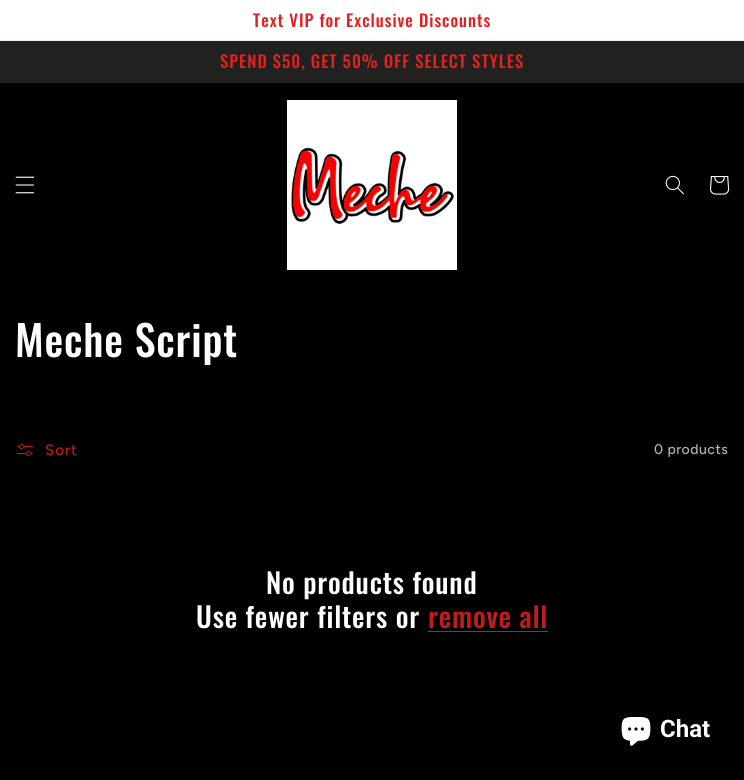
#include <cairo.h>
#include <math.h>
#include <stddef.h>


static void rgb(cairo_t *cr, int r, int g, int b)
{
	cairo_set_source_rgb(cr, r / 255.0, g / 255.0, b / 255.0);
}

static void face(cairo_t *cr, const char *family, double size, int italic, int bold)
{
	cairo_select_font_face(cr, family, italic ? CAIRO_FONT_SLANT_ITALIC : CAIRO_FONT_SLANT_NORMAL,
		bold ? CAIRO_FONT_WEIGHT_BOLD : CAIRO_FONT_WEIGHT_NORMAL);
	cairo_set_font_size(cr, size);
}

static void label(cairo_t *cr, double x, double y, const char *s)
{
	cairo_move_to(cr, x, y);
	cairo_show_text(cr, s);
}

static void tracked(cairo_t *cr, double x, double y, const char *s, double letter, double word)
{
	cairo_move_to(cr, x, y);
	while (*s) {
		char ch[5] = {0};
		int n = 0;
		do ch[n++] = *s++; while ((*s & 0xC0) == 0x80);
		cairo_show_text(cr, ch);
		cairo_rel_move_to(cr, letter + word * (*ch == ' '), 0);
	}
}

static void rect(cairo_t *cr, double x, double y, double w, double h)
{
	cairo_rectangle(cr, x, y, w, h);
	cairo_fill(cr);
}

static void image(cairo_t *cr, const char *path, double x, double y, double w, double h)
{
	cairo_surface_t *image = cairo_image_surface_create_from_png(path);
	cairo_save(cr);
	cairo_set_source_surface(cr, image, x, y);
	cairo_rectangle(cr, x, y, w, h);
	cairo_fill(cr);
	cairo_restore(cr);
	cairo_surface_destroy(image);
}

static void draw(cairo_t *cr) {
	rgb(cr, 0, 0, 0);
	cairo_paint(cr);
	rgb(cr, 255, 255, 255);
	rect(cr, 0, 0, 744, 40);
	rgb(cr, 253, 237, 237);
	rect(cr, 0, 40, 744, 1);
	face(cr, "Oswald Medium", 16.75, 0, 0);
	rgb(cr, 226, 33, 32);
	tracked(cr, 253, 27, "Text VIP for Exclusive Discounts", 1, 0);
	rgb(cr, 33, 33, 31);
	rect(cr, 0, 41, 744, 41);
	rgb(cr, 48, 33, 31);
	rect(cr, 0, 82, 744, 1);
	rgb(cr, 226, 33, 32);
	tracked(cr, 220, 68, "SPEND $50, GET 50% OFF SELECT STYLES", 1, 0);
	image(cr, "image0.png", 15, 176, 20, 18);
	image(cr, "image1.png", 287, 100, 170, 170);
	image(cr, "image2.png", 665, 175, 19, 20);
	image(cr, "image3.png", 710, 176, 20, 19);
	face(cr, "Oswald Medium", 42, 0, 0);
	rgb(cr, 255, 255, 255);
	tracked(cr, 15, 357, "Meche Script", 0.8, 0);
	image(cr, "image4.png", 17, 444, 16, 12);
	face(cr, "Figtree Medium", 15, 0, 0);
	rgb(cr, 192, 28, 27);
	tracked(cr, 45, 455, "Sort", 1, 0);
	face(cr, "Figtree Medium", 14, 0, 0);
	rgb(cr, 179, 179, 179);
	tracked(cr, 654, 454, "0 products", 0.5, 0);
	face(cr, "Oswald Medium", 28, 0, 0);
	rgb(cr, 255, 255, 255);
	tracked(cr, 266, 594, "No products found", 0.8, 0);
	tracked(cr, 196, 628, "Use fewer filters or", 0.8, 0);
	rgb(cr, 192, 28, 27);
	tracked(cr, 428, 628, "remove all", 0.8, 0);
	rect(cr, 428, 631, 120, 1);
	image(cr, "image5.png", 621, 717, 30, 29);
	face(cr, "Roboto", 24, 0, 1);
	rgb(cr, 255, 255, 255);
	label(cr, 660, 737, "Chat");
}

int main(void) {
	cairo_surface_t *surface = cairo_image_surface_create(CAIRO_FORMAT_RGB24, 744, 780);
	cairo_t *cr = cairo_create(surface);
	cairo_font_options_t *options = cairo_font_options_create();
	cairo_font_options_set_hint_metrics(options, CAIRO_HINT_METRICS_OFF);
	cairo_font_options_set_hint_style(options, CAIRO_HINT_STYLE_NONE);
	cairo_set_font_options(cr, options);
	cairo_set_miter_limit(cr, 4);
	draw(cr);
	cairo_surface_write_to_png(surface, "render.png");
	cairo_font_options_destroy(options);
	cairo_destroy(cr);
	cairo_surface_destroy(surface);
	return 0;
}
